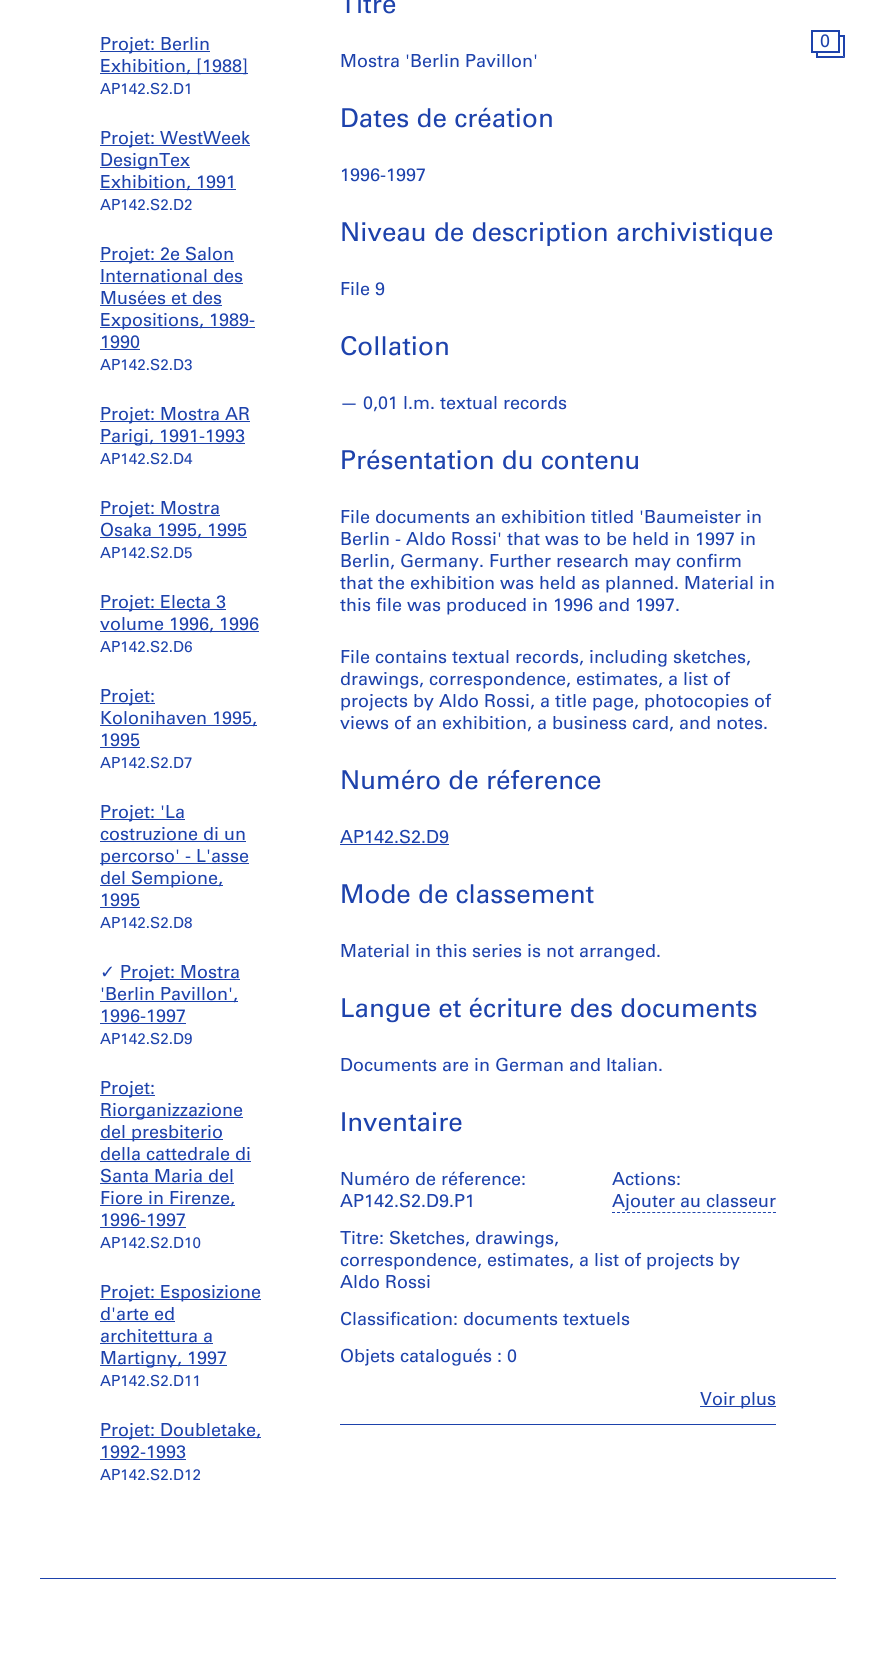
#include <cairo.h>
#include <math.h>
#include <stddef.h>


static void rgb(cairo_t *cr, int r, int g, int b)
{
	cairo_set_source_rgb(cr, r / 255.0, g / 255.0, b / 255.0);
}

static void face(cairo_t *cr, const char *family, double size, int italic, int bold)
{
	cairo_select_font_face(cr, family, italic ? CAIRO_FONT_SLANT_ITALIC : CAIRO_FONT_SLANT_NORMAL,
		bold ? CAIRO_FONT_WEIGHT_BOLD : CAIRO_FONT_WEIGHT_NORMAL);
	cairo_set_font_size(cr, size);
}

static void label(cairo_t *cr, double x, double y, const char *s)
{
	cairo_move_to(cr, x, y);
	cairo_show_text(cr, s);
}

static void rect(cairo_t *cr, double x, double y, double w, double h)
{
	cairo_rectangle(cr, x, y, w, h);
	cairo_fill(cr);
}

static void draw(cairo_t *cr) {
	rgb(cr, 255, 255, 255);
	cairo_paint(cr);
	rgb(cr, 29, 66, 172);
	rect(cr, 100, 51, 110, 1);
	face(cr, "Univers", 18, 0, 0);
	label(cr, 100, 50, "Projet: Berlin");
	rect(cr, 100, 73, 148, 1);
	label(cr, 100, 72, "Exhibition, [1988]");
	face(cr, "Univers", 15.25, 0, 0);
	label(cr, 100, 94, "AP142.S2.D1");
	rect(cr, 100, 145, 150, 1);
	face(cr, "Univers", 18, 0, 0);
	label(cr, 100, 144, "Projet: WestWeek");
	rect(cr, 100, 167, 90, 1);
	label(cr, 100, 166, "DesignTex");
	rect(cr, 100, 189, 136, 1);
	label(cr, 100, 188, "Exhibition, 1991");
	face(cr, "Univers", 15.25, 0, 0);
	label(cr, 100, 210, "AP142.S2.D2");
	rect(cr, 100, 261, 134, 1);
	face(cr, "Univers", 18, 0, 0);
	label(cr, 100, 260, "Projet: 2e Salon");
	label(cr, 100, 282, "International des");
	rect(cr, 100, 283, 143, 1);
	label(cr, 100, 304, "Musées et des");
	rect(cr, 100, 305, 122, 1);
	rect(cr, 100, 327, 155, 1);
	label(cr, 100, 326, "Expositions, 1989-");
	label(cr, 100, 348, "1990");
	rect(cr, 100, 349, 40, 1);
	face(cr, "Univers", 15.25, 0, 0);
	label(cr, 100, 370, "AP142.S2.D3");
	rect(cr, 100, 421, 150, 1);
	face(cr, "Univers", 18, 0, 0);
	label(cr, 100, 420, "Projet: Mostra AR");
	rect(cr, 100, 443, 145, 1);
	label(cr, 100, 442, "Parigi, 1991-1993");
	face(cr, "Univers", 15.25, 0, 0);
	label(cr, 100, 464, "AP142.S2.D4");
	rect(cr, 100, 515, 120, 1);
	face(cr, "Univers", 18, 0, 0);
	label(cr, 100, 514, "Projet: Mostra");
	rect(cr, 100, 537, 147, 1);
	label(cr, 100, 536, "Osaka 1995, 1995");
	face(cr, "Univers", 15.25, 0, 0);
	label(cr, 100, 558, "AP142.S2.D5");
	rect(cr, 100, 609, 126, 1);
	face(cr, "Univers", 18, 0, 0);
	label(cr, 100, 608, "Projet: Electa 3");
	rect(cr, 100, 631, 159, 1);
	label(cr, 100, 630, "volume 1996, 1996");
	face(cr, "Univers", 15.25, 0, 0);
	label(cr, 100, 652, "AP142.S2.D6");
	rect(cr, 100, 703, 55, 1);
	face(cr, "Univers", 18, 0, 0);
	label(cr, 100, 702, "Projet:");
	rect(cr, 100, 725, 157, 1);
	label(cr, 100, 724, "Kolonihaven 1995,");
	label(cr, 100, 746, "1995");
	rect(cr, 100, 747, 40, 1);
	face(cr, "Univers", 15.25, 0, 0);
	label(cr, 100, 768, "AP142.S2.D7");
	rect(cr, 100, 819, 85, 1);
	face(cr, "Univers", 18, 0, 0);
	label(cr, 100, 818, "Projet: 'La");
	label(cr, 100, 840, "costruzione di un");
	rect(cr, 100, 841, 146, 1);
	rect(cr, 100, 863, 149, 1);
	label(cr, 100, 862, "percorso' - L'asse");
	rect(cr, 100, 885, 123, 1);
	label(cr, 100, 884, "del Sempione,");
	label(cr, 100, 906, "1995");
	rect(cr, 100, 907, 40, 1);
	face(cr, "Univers", 15.25, 0, 0);
	label(cr, 100, 928, "AP142.S2.D8");
	face(cr, "DejaVu Sans", 18, 0, 0);
	label(cr, 100, 978, "✓");
	rect(cr, 120, 979, 120, 1);
	face(cr, "Univers", 18, 0, 0);
	label(cr, 120, 978, "Projet: Mostra");
	rect(cr, 100, 1001, 138, 1);
	label(cr, 100, 1000, "'Berlin Pavillon',");
	label(cr, 100, 1022, "1996-1997");
	rect(cr, 100, 1023, 86, 1);
	face(cr, "Univers", 15.25, 0, 0);
	label(cr, 100, 1044, "AP142.S2.D9");
	rect(cr, 100, 1095, 55, 1);
	face(cr, "Univers", 18, 0, 0);
	label(cr, 100, 1094, "Projet:");
	rect(cr, 100, 1117, 143, 1);
	label(cr, 100, 1116, "Riorganizzazione");
	rect(cr, 100, 1139, 123, 1);
	label(cr, 100, 1138, "del presbiterio");
	label(cr, 100, 1160, "della cattedrale di");
	rect(cr, 100, 1161, 151, 1);
	label(cr, 100, 1182, "Santa Maria del");
	rect(cr, 100, 1183, 134, 1);
	rect(cr, 100, 1205, 135, 1);
	label(cr, 100, 1204, "Fiore in Firenze,");
	label(cr, 100, 1226, "1996-1997");
	rect(cr, 100, 1227, 86, 1);
	face(cr, "Univers", 15.25, 0, 0);
	label(cr, 100, 1248, "AP142.S2.D10");
	rect(cr, 100, 1299, 161, 1);
	face(cr, "Univers", 18, 0, 0);
	label(cr, 100, 1298, "Projet: Esposizione");
	label(cr, 100, 1320, "d'arte ed");
	rect(cr, 100, 1321, 75, 1);
	label(cr, 100, 1342, "architettura a");
	rect(cr, 100, 1343, 113, 1);
	rect(cr, 100, 1365, 127, 1);
	label(cr, 100, 1364, "Martigny, 1997");
	face(cr, "Univers", 15.25, 0, 0);
	label(cr, 100, 1386, "AP142.S2.D11");
	rect(cr, 100, 1437, 161, 1);
	face(cr, "Univers", 18, 0, 0);
	label(cr, 100, 1436, "Projet: Doubletake,");
	label(cr, 100, 1458, "1992-1993");
	rect(cr, 100, 1459, 86, 1);
	face(cr, "Univers", 15.25, 0, 0);
	label(cr, 100, 1480, "AP142.S2.D12");
	face(cr, "Univers", 26, 0, 0);
	label(cr, 340, 13, "Titre");
	face(cr, "Univers", 18, 0, 0);
	label(cr, 340, 67, "Mostra 'Berlin Pavillon'");
	face(cr, "Univers", 26, 0, 0);
	label(cr, 340, 127, "Dates de création");
	face(cr, "Univers", 18, 0, 0);
	label(cr, 340, 181, "1996-1997");
	face(cr, "Univers", 26, 0, 0);
	label(cr, 340, 241, "Niveau de description archivistique");
	face(cr, "Univers", 18, 0, 0);
	label(cr, 340, 295, "File 9");
	face(cr, "Univers", 26, 0, 0);
	label(cr, 340, 355, "Collation");
	face(cr, "Univers", 18, 0, 0);
	label(cr, 340, 409, "—");
	label(cr, 363, 409, "0,01 l.m. textual records");
	face(cr, "Univers", 26, 0, 0);
	label(cr, 340, 469, "Présentation du contenu");
	face(cr, "Univers", 18, 0, 0);
	label(cr, 340, 523, "File documents an exhibition titled 'Baumeister in");
	label(cr, 340, 545, "Berlin - Aldo Rossi' that was to be held in 1997 in");
	label(cr, 340, 567, "Berlin, Germany. Further research may confirm");
	label(cr, 340, 589, "that the exhibition was held as planned. Material in");
	label(cr, 340, 611, "this file was produced in 1996 and 1997.");
	label(cr, 340, 663, "File contains textual records, including sketches,");
	label(cr, 340, 685, "drawings, correspondence, estimates, a list of");
	label(cr, 340, 707, "projects by Aldo Rossi, a title page, photocopies of");
	label(cr, 340, 729, "views of an exhibition, a business card, and notes.");
	face(cr, "Univers", 26, 0, 0);
	label(cr, 340, 789, "Numéro de réference");
	face(cr, "Univers", 18, 0, 0);
	label(cr, 340, 843, "AP142.S2.D9");
	rect(cr, 340, 844, 109, 1);
	face(cr, "Univers", 26, 0, 0);
	label(cr, 340, 903, "Mode de classement");
	face(cr, "Univers", 18, 0, 0);
	label(cr, 340, 957, "Material in this series is not arranged.");
	face(cr, "Univers", 26, 0, 0);
	label(cr, 340, 1017, "Langue et écriture des documents");
	face(cr, "Univers", 18, 0, 0);
	label(cr, 340, 1071, "Documents are in German and Italian.");
	face(cr, "Univers", 26, 0, 0);
	label(cr, 340, 1131, "Inventaire");
	face(cr, "Univers", 18, 0, 0);
	label(cr, 340, 1185, "Numéro de réference:");
	label(cr, 340, 1207, "AP142.S2.D9.P1");
	label(cr, 340, 1244, "Titre: Sketches, drawings,");
	label(cr, 340, 1266, "correspondence, estimates, a list of projects by");
	label(cr, 340, 1288, "Aldo Rossi");
	label(cr, 340, 1325, "Classification: documents textuels");
	label(cr, 340, 1362, "Objets catalogués : 0");
	label(cr, 612, 1185, "Actions:");
	label(cr, 612, 1207, "Ajouter au classeur");
	cairo_new_path(cr);
	cairo_move_to(cr, 612, 1212.5);
	cairo_line_to(cr, 776, 1212.5);
	cairo_set_line_width(cr, 1);
	cairo_set_dash(cr, (double[]){3, 2.03}, 2, 0);
	cairo_stroke(cr);
	rect(cr, 700, 1406, 76, 1);
	label(cr, 700, 1405, "Voir plus");
	rect(cr, 340, 1424, 436, 1);
	cairo_new_path(cr);
	cairo_move_to(cr, 845, 35);
	cairo_line_to(cr, 845, 58);
	cairo_line_to(cr, 843, 56);
	cairo_line_to(cr, 843, 37);
	cairo_close_path(cr);
	cairo_fill(cr);
	rect(cr, 839, 35, 6, 2);
	cairo_rectangle(cr, 812, 31, 27, 21);
	cairo_set_line_width(cr, 2);
	cairo_set_dash(cr, NULL, 0, 0);
	cairo_stroke(cr);
	label(cr, 820, 47, "0");
	cairo_new_path(cr);
	cairo_move_to(cr, 845, 58);
	cairo_line_to(cr, 816, 58);
	cairo_line_to(cr, 818, 56);
	cairo_line_to(cr, 843, 56);
	cairo_close_path(cr);
	cairo_fill(cr);
	rect(cr, 816, 53, 2, 5);
	rect(cr, 40, 1578, 796, 1);
}

int main(void) {
	cairo_surface_t *surface = cairo_image_surface_create(CAIRO_FORMAT_RGB24, 876, 1675);
	cairo_t *cr = cairo_create(surface);
	cairo_font_options_t *options = cairo_font_options_create();
	cairo_font_options_set_hint_metrics(options, CAIRO_HINT_METRICS_OFF);
	cairo_font_options_set_hint_style(options, CAIRO_HINT_STYLE_NONE);
	cairo_set_font_options(cr, options);
	cairo_set_miter_limit(cr, 4);
	draw(cr);
	cairo_surface_write_to_png(surface, "render.png");
	cairo_font_options_destroy(options);
	cairo_destroy(cr);
	cairo_surface_destroy(surface);
	return 0;
}
